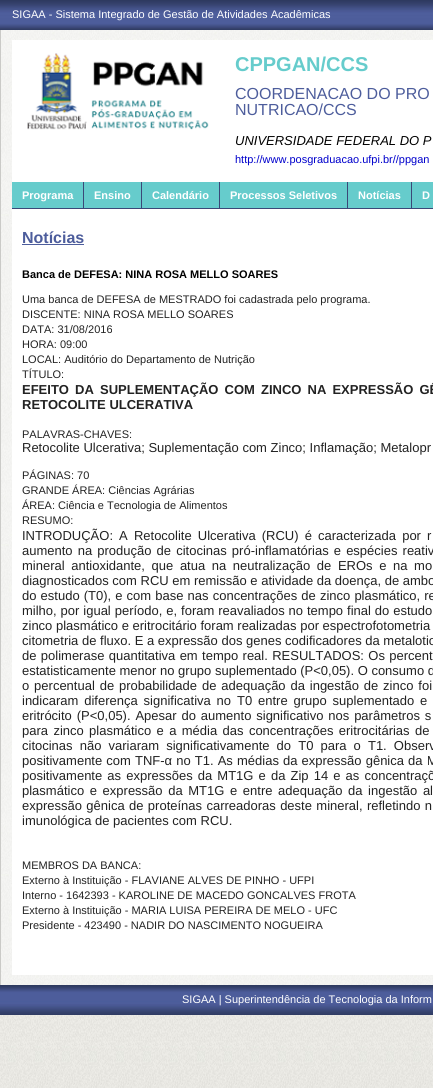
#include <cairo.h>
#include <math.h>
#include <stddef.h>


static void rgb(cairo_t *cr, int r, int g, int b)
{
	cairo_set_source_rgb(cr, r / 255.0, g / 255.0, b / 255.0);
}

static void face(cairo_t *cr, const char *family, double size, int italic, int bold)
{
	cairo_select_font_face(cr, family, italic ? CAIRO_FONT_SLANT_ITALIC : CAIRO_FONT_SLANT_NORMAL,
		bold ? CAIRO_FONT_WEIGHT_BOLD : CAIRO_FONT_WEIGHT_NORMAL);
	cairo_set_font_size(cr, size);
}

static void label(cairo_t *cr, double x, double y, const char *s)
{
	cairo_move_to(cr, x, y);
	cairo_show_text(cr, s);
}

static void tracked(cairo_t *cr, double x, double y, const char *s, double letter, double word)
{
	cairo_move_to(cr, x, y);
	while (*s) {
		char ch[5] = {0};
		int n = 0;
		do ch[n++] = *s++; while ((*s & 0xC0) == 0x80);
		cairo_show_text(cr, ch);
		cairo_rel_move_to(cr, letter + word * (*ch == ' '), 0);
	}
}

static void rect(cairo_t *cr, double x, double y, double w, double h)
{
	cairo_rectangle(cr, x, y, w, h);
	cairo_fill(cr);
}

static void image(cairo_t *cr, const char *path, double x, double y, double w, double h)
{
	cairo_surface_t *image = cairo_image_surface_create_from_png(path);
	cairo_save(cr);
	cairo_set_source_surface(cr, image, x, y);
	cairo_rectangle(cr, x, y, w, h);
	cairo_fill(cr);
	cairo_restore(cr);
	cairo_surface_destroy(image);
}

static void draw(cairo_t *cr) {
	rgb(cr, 255, 255, 255);
	cairo_paint(cr);
	image(cr, "image0.png", 0, 1015, 433, 73);
	image(cr, "image1.png", 0, 0, 433, 30);
	image(cr, "image2.png", 0, 985, 433, 30);
	face(cr, "Liberation Sans", 11, 0, 0);
	rgb(cr, 255, 255, 255);
	label(cr, 12, 18, "SIGAA - Sistema Integrado de Gestão de Atividades Acadêmicas");
	image(cr, "image3.png", 1, 30, 432, 955);
	rgb(cr, 202, 202, 199);
	rect(cr, 0, 30, 1, 955);
	rgb(cr, 255, 255, 255);
	rect(cr, 12, 40, 421, 935);
	image(cr, "image4.png", 27, 53, 182, 77);
	face(cr, "Liberation Sans", 20, 0, 1);
	rgb(cr, 102, 204, 204);
	label(cr, 235, 71, "CPPGAN/CCS");
	face(cr, "Liberation Sans", 16, 0, 0);
	rgb(cr, 77, 93, 156);
	label(cr, 235, 99, "COORDENACAO DO PRO");
	label(cr, 235, 115, "NUTRICAO/CCS");
	face(cr, "Liberation Sans", 13, 1, 0);
	rgb(cr, 0, 0, 0);
	label(cr, 235, 145, "UNIVERSIDADE FEDERAL DO P");
	face(cr, "Liberation Sans", 11, 0, 0);
	rgb(cr, 0, 0, 204);
	label(cr, 235, 163, "http://www.posgraduacao.ufpi.br//ppgan");
	rgb(cr, 102, 204, 204);
	rect(cr, 12, 182, 421, 26);
	rgb(cr, 59, 72, 120);
	rect(cr, 12, 208, 421, 1);
	face(cr, "Liberation Sans", 11, 0, 1);
	rgb(cr, 255, 255, 255);
	label(cr, 22, 199, "Programa");
	rgb(cr, 59, 72, 120);
	rect(cr, 83, 182, 1, 27);
	rgb(cr, 255, 255, 255);
	label(cr, 94, 199, "Ensino");
	rgb(cr, 59, 72, 120);
	rect(cr, 141, 182, 1, 27);
	rgb(cr, 255, 255, 255);
	label(cr, 152, 199, "Calendário");
	rgb(cr, 59, 72, 120);
	rect(cr, 219, 182, 1, 27);
	rgb(cr, 255, 255, 255);
	label(cr, 230, 199, "Processos Seletivos");
	rgb(cr, 59, 72, 120);
	rect(cr, 347, 182, 1, 27);
	rgb(cr, 255, 255, 255);
	label(cr, 358, 199, "Notícias");
	rgb(cr, 59, 72, 120);
	rect(cr, 411, 182, 1, 27);
	rgb(cr, 255, 255, 255);
	label(cr, 422, 199, "D");
	face(cr, "Liberation Sans", 16, 0, 1);
	rgb(cr, 77, 93, 156);
	label(cr, 22, 243, "Notícias");
	rect(cr, 22, 244, 62, 1);
	face(cr, "Liberation Sans", 11, 0, 1);
	rgb(cr, 0, 0, 0);
	label(cr, 22, 278, "Banca de DEFESA: NINA ROSA MELLO SOARES");
	face(cr, "Liberation Sans", 11, 0, 0);
	rgb(cr, 34, 34, 34);
	label(cr, 22, 303, "Uma banca de DEFESA de MESTRADO foi cadastrada pelo programa.");
	label(cr, 22, 318, "DISCENTE: NINA ROSA MELLO SOARES");
	label(cr, 22, 333, "DATA: 31/08/2016");
	label(cr, 22, 348, "HORA: 09:00");
	label(cr, 22, 363, "LOCAL: Auditório do Departamento de Nutrição");
	label(cr, 22, 378, "TÍTULO:");
	face(cr, "Liberation Sans", 13, 0, 1);
	tracked(cr, 22, 394, "EFEITO DA SUPLEMENTAÇÃO COM ZINCO NA EXPRESSÃO GÊ", 0, 2.5);
	label(cr, 22, 409, "RETOCOLITE ULCERATIVA");
	face(cr, "Liberation Sans", 11, 0, 0);
	label(cr, 22, 438, "PALAVRAS-CHAVES:");
	face(cr, "Liberation Sans", 13, 0, 0);
	label(cr, 22, 452, "Retocolite Ulcerativa; Suplementação com Zinco; Inflamação; Metalopr");
	face(cr, "Liberation Sans", 11, 0, 0);
	label(cr, 22, 479, "PÁGINAS: 70");
	label(cr, 22, 494, "GRANDE ÁREA: Ciências Agrárias");
	label(cr, 22, 509, "ÁREA: Ciência e Tecnologia de Alimentos");
	label(cr, 22, 524, "RESUMO:");
	face(cr, "Liberation Sans", 13, 0, 0);
	tracked(cr, 22, 540, "INTRODUÇÃO: A Retocolite Ulcerativa (RCU) é caracterizada por r", 0, 2.5);
	tracked(cr, 22, 555, "aumento na produção de citocinas pró-inflamatórias e espécies reativ", 0, 1.5);
	tracked(cr, 22, 570, "mineral antioxidante, que atua na neutralização de EROs e na mo", 0, 3);
	label(cr, 22, 585, "diagnosticados com RCU em remissão e atividade da doença, de ambo");
	tracked(cr, 22, 600, "do estudo (T0), e com base nas concentrações de zinco plasmático, re", 0, 0.5);
	tracked(cr, 22, 615, "milho, por igual período, e, foram reavaliados no tempo final do estudo", 0, 0.3);
	label(cr, 22, 630, "zinco plasmático e eritrocitário foram realizadas por espectrofotometria");
	label(cr, 22, 645, "citometria de fluxo. E a expressão dos genes codificadores da metalotio");
	tracked(cr, 22, 660, "de polimerase quantitativa em tempo real. RESULTADOS: Os percent", 0, 0.75);
	label(cr, 22, 675, "estatisticamente menor no grupo suplementado (P<0,05). O consumo d");
	tracked(cr, 22, 690, "o percentual de probabilidade de adequação da ingestão de zinco foi", 0, 1.25);
	tracked(cr, 22, 705, "indicaram diferença significativa no T0 entre grupo suplementado e", 0, 2.25);
	tracked(cr, 22, 720, "eritrócito (P<0,05). Apesar do aumento significativo nos parâmetros s", 0, 1.25);
	tracked(cr, 22, 735, "para zinco plasmático e a média das concentrações eritrocitárias de", 0, 1.75);
	tracked(cr, 22, 750, "citocinas não variaram significativamente do T0 para o T1. Observ", 0, 3.5);
	tracked(cr, 22, 765, "positivamente com TNF-α no T1. As médias da expressão gênica da M", 0, 0.5);
	tracked(cr, 22, 780, "positivamente as expressões da MT1G e da Zip 14 e as concentraçõ", 0, 1.5);
	tracked(cr, 22, 795, "plasmático e expressão da MT1G e entre adequação da ingestão al", 0, 2);
	tracked(cr, 22, 810, "expressão gênica de proteínas carreadoras deste mineral, refletindo n", 0, 0.75);
	label(cr, 22, 825, "imunológica de pacientes com RCU.");
	face(cr, "Liberation Sans", 11, 0, 0);
	label(cr, 22, 869, "MEMBROS DA BANCA:");
	label(cr, 22, 884, "Externo à Instituição - FLAVIANE ALVES DE PINHO - UFPI");
	label(cr, 22, 899, "Interno - 1642393 - KAROLINE DE MACEDO GONCALVES FROTA");
	label(cr, 22, 914, "Externo à Instituição - MARIA LUISA PEREIRA DE MELO - UFC");
	label(cr, 22, 929, "Presidente - 423490 - NADIR DO NASCIMENTO NOGUEIRA");
	rgb(cr, 255, 255, 255);
	label(cr, 182, 1003, "SIGAA | Superintendência de Tecnologia da Inform");
}

int main(void) {
	cairo_surface_t *surface = cairo_image_surface_create(CAIRO_FORMAT_RGB24, 433, 1088);
	cairo_t *cr = cairo_create(surface);
	cairo_font_options_t *options = cairo_font_options_create();
	cairo_font_options_set_hint_metrics(options, CAIRO_HINT_METRICS_OFF);
	cairo_font_options_set_hint_style(options, CAIRO_HINT_STYLE_NONE);
	cairo_set_font_options(cr, options);
	cairo_set_miter_limit(cr, 4);
	draw(cr);
	cairo_surface_write_to_png(surface, "render.png");
	cairo_font_options_destroy(options);
	cairo_destroy(cr);
	cairo_surface_destroy(surface);
	return 0;
}
